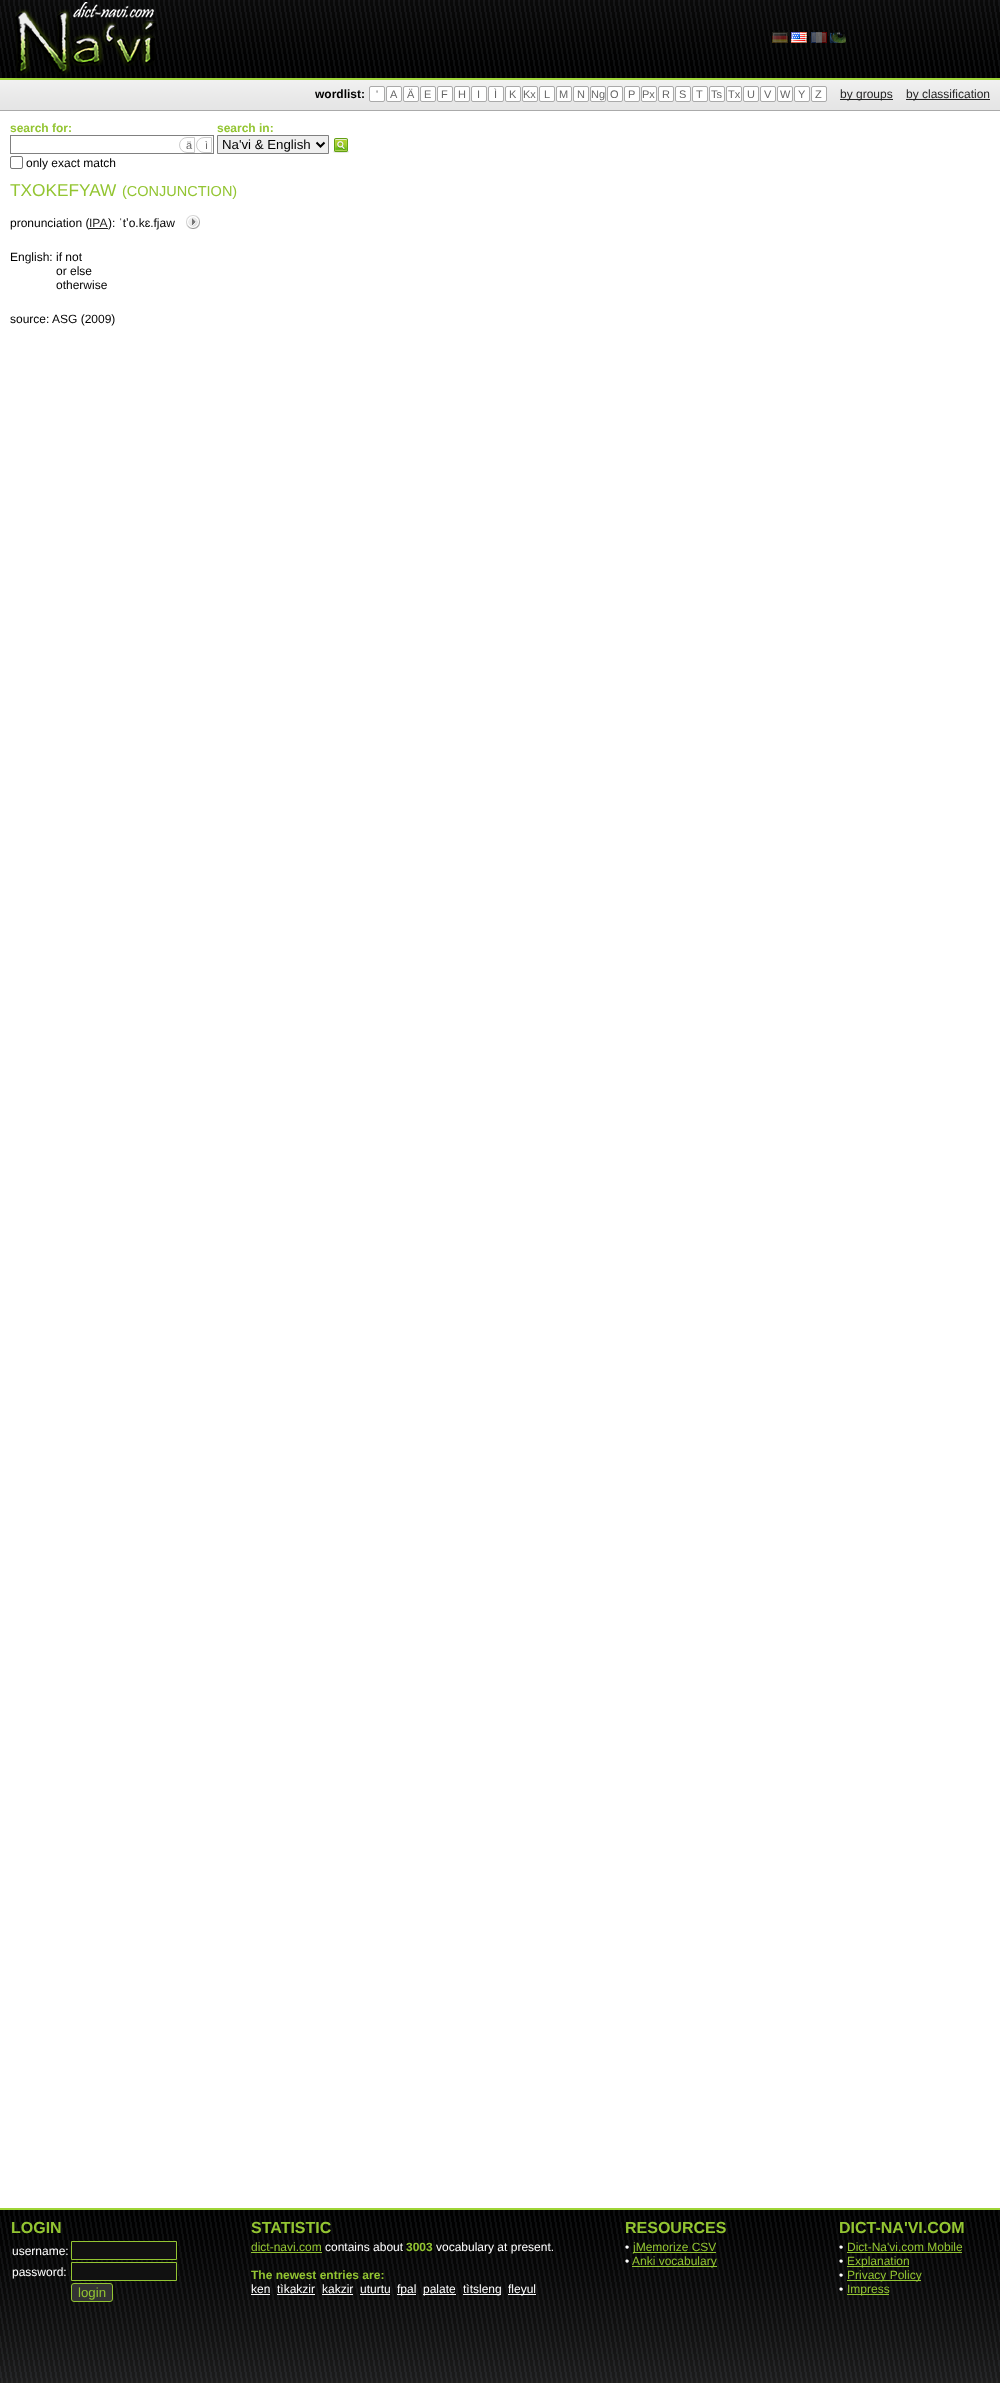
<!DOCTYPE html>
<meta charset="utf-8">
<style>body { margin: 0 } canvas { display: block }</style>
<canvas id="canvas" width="1000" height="2383"></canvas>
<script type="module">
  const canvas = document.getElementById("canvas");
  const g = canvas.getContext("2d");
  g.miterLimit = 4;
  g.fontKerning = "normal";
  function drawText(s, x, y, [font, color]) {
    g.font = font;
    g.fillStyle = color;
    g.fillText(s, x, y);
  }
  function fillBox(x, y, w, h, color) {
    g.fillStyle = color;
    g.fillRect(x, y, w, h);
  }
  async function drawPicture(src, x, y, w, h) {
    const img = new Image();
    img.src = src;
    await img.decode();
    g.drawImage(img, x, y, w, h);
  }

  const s1 = ["bold 12px Liberation Sans", "#000000"];
  const s2 = ["11px Liberation Sans", "#666666"];
  const s3 = ["12px Liberation Sans", "#242424"];
  const s4 = ["bold 12px Liberation Sans", "#93C532"];
  const s5 = ["12px Liberation Sans", "#000000"];
  const s6 = ["13.25px Liberation Sans", "#000000"];
  const s7 = ["17.25px Liberation Sans", "#93C532"];
  const s8 = ["14.5px Liberation Sans", "#93C532"];
  const s9 = ["bold 16px Liberation Sans", "#93C532"];
  const s10 = ["12px Liberation Sans", "#FFFFFF"];
  const s11 = ["13.25px Liberation Sans", "#93C532"];
  const s12 = ["12px Liberation Sans", "#93C532"];

  fillBox(0, 0, 1000, 2383, "#FFFFFF");
  await drawPicture("pic1.png", 0, 0, 1000, 80);
  await drawPicture("pic2.png", 15, 2, 142, 77);
  await drawPicture("pic3.png", 772, 32, 16, 11);
  await drawPicture("pic4.png", 791, 32, 16, 11);
  await drawPicture("pic5.png", 811, 32, 16, 11);
  await drawPicture("pic6.png", 830, 32, 16, 11);
  await drawPicture("pic7.png", 0, 80, 1000, 30);
  fillBox(0, 110, 1000, 1, "#AAAAAA");
  drawText("wordlist:", 315, 98, s1);
  g.fillStyle = "#FFFFFF";
  g.beginPath();
  g.roundRect(369.5, 86.5, 15, 15, 1.5);
  g.fill();
  g.strokeStyle = "#AAAAAA";
  g.stroke();
  drawText("'", 376, 98, s2);
  g.fillStyle = "#FFFFFF";
  g.beginPath();
  g.roundRect(386.5, 86.5, 15, 15, 1.5);
  g.fill();
  g.stroke();
  drawText("A", 390, 98, s2);
  g.fillStyle = "#FFFFFF";
  g.beginPath();
  g.roundRect(403.5, 86.5, 15, 15, 1.5);
  g.fill();
  g.stroke();
  drawText("Ä", 407, 98, s2);
  g.fillStyle = "#FFFFFF";
  g.beginPath();
  g.roundRect(420.5, 86.5, 15, 15, 1.5);
  g.fill();
  g.stroke();
  drawText("E", 424, 98, s2);
  g.fillStyle = "#FFFFFF";
  g.beginPath();
  g.roundRect(437.5, 86.5, 15, 15, 1.5);
  g.fill();
  g.stroke();
  drawText("F", 441, 98, s2);
  g.fillStyle = "#FFFFFF";
  g.beginPath();
  g.roundRect(454.5, 86.5, 15, 15, 1.5);
  g.fill();
  g.stroke();
  drawText("H", 458, 98, s2);
  g.fillStyle = "#FFFFFF";
  g.beginPath();
  g.roundRect(471.5, 86.5, 15, 15, 1.5);
  g.fill();
  g.stroke();
  drawText("I", 477, 98, s2);
  g.fillStyle = "#FFFFFF";
  g.beginPath();
  g.roundRect(488.5, 86.5, 15, 15, 1.5);
  g.fill();
  g.stroke();
  drawText("Ì", 494, 98, s2);
  g.fillStyle = "#FFFFFF";
  g.beginPath();
  g.roundRect(505.5, 86.5, 15, 15, 1.5);
  g.fill();
  g.stroke();
  drawText("K", 509, 98, s2);
  g.fillStyle = "#FFFFFF";
  g.beginPath();
  g.roundRect(522.5, 86.5, 15, 15, 1.5);
  g.fill();
  g.stroke();
  drawText("Kx", 523, 98, s2);
  g.fillStyle = "#FFFFFF";
  g.beginPath();
  g.roundRect(539.5, 86.5, 15, 15, 1.5);
  g.fill();
  g.stroke();
  drawText("L", 544, 98, s2);
  g.fillStyle = "#FFFFFF";
  g.beginPath();
  g.roundRect(556.5, 86.5, 15, 15, 1.5);
  g.fill();
  g.stroke();
  drawText("M", 559, 98, s2);
  g.fillStyle = "#FFFFFF";
  g.beginPath();
  g.roundRect(573.5, 86.5, 15, 15, 1.5);
  g.fill();
  g.stroke();
  drawText("N", 577, 98, s2);
  g.fillStyle = "#FFFFFF";
  g.beginPath();
  g.roundRect(590.5, 86.5, 15, 15, 1.5);
  g.fill();
  g.stroke();
  drawText("Ng", 591, 98, s2);
  g.fillStyle = "#FFFFFF";
  g.beginPath();
  g.roundRect(607.5, 86.5, 15, 15, 1.5);
  g.fill();
  g.stroke();
  drawText("O", 610, 98, s2);
  g.fillStyle = "#FFFFFF";
  g.beginPath();
  g.roundRect(624.5, 86.5, 15, 15, 1.5);
  g.fill();
  g.stroke();
  drawText("P", 628, 98, s2);
  g.fillStyle = "#FFFFFF";
  g.beginPath();
  g.roundRect(641.5, 86.5, 15, 15, 1.5);
  g.fill();
  g.stroke();
  drawText("Px", 642, 98, s2);
  g.fillStyle = "#FFFFFF";
  g.beginPath();
  g.roundRect(658.5, 86.5, 15, 15, 1.5);
  g.fill();
  g.stroke();
  drawText("R", 662, 98, s2);
  g.fillStyle = "#FFFFFF";
  g.beginPath();
  g.roundRect(675.5, 86.5, 15, 15, 1.5);
  g.fill();
  g.stroke();
  drawText("S", 679, 98, s2);
  g.fillStyle = "#FFFFFF";
  g.beginPath();
  g.roundRect(692.5, 86.5, 15, 15, 1.5);
  g.fill();
  g.stroke();
  drawText("T", 696, 98, s2);
  g.fillStyle = "#FFFFFF";
  g.beginPath();
  g.roundRect(709.5, 86.5, 15, 15, 1.5);
  g.fill();
  g.stroke();
  drawText("Ts", 711, 98, s2);
  g.fillStyle = "#FFFFFF";
  g.beginPath();
  g.roundRect(726.5, 86.5, 15, 15, 1.5);
  g.fill();
  g.stroke();
  drawText("Tx", 728, 98, s2);
  g.fillStyle = "#FFFFFF";
  g.beginPath();
  g.roundRect(743.5, 86.5, 15, 15, 1.5);
  g.fill();
  g.stroke();
  drawText("U", 747, 98, s2);
  g.fillStyle = "#FFFFFF";
  g.beginPath();
  g.roundRect(760.5, 86.5, 15, 15, 1.5);
  g.fill();
  g.stroke();
  drawText("V", 764, 98, s2);
  g.fillStyle = "#FFFFFF";
  g.beginPath();
  g.roundRect(777.5, 86.5, 15, 15, 1.5);
  g.fill();
  g.stroke();
  drawText("W", 780, 98, s2);
  g.fillStyle = "#FFFFFF";
  g.beginPath();
  g.roundRect(794.5, 86.5, 15, 15, 1.5);
  g.fill();
  g.stroke();
  drawText("Y", 798, 98, s2);
  g.fillStyle = "#FFFFFF";
  g.beginPath();
  g.roundRect(811.5, 86.5, 15, 15, 1.5);
  g.fill();
  g.stroke();
  drawText("Z", 815, 98, s2);
  fillBox(840, 99, 53, 1, "#242424");
  drawText("by groups", 840, 98, s3);
  fillBox(906, 99, 84, 1, "#242424");
  drawText("by classification", 906, 98, s3);
  drawText("search for:", 10, 132, s4);
  g.strokeStyle = "#808080";
  g.strokeRect(10.5, 135.5, 203, 18);
  g.beginPath();
  g.roundRect(179.5, 137.5, 15, 15, [7.5, 0, 0, 7.5]);
  g.strokeStyle = "#CCCCCC";
  g.stroke();
  drawText("ä", 186, 149, s2);
  g.beginPath();
  g.roundRect(196.5, 137.5, 15, 15, [7.5, 0, 0, 7.5]);
  g.stroke();
  drawText("ì", 205, 149, s2);
  g.beginPath();
  g.roundRect(10.5, 156.5, 12, 12, 1.5);
  g.strokeStyle = "#767676";
  g.stroke();
  drawText("only exact match", 26, 167, s5);
  drawText("search in:", 217, 132, s4);
  g.fillStyle = "#EFEFEF";
  g.beginPath();
  g.rect(217.5, 135.5, 111, 18);
  g.fill();
  g.strokeStyle = "#808080";
  g.stroke();
  g.beginPath();
  g.moveTo(316.5, 142.5);
  g.lineTo(320.5, 146.5);
  g.lineTo(324.5, 142.5);
  g.strokeStyle = "#000000";
  g.lineWidth = 2;
  g.stroke();
  drawText("Na'vi & English", 222, 149, s6);
  await drawPicture("pic8.png", 333, 138, 16, 15);
  drawText("TXOKEFYAW", 10, 196, s7);
  drawText("(CONJUNCTION)", 122, 196, s8);
  drawText("pronunciation (", 10, 227, s5);
  drawText("IPA", 89, 227, s3);
  fillBox(89, 228, 19, 1, "#242424");
  drawText("): ˈtʼo.kɛ.fjaw", 108, 227, s5);
  await drawPicture("pic9.png", 186, 215, 14, 14);
  drawText("English:", 10, 261, s5);
  drawText("if not", 56, 261, s5);
  drawText("or else", 56, 275, s5);
  drawText("otherwise", 56, 289, s5);
  drawText("source:", 10, 323, s5);
  drawText("ASG (2009)", 52, 323, s5);
  await drawPicture("pic10.png", 0, 2208, 1000, 175);
  drawText("LOGIN", 11, 2233, s9);
  drawText("username:", 12, 2255, s10);
  g.fillStyle = "#111111";
  g.beginPath();
  g.rect(71.5, 2241.5, 105, 18);
  g.fill();
  g.strokeStyle = "#93C532";
  g.lineWidth = 1;
  g.stroke();
  drawText("password:", 12, 2276, s10);
  g.fillStyle = "#111111";
  g.beginPath();
  g.rect(71.5, 2262.5, 105, 18);
  g.fill();
  g.stroke();
  g.fillStyle = "#333333";
  g.beginPath();
  g.roundRect(71.5, 2283.5, 41, 18, 2.5);
  g.fill();
  g.stroke();
  drawText("login", 78, 2297, s11);
  drawText("STATISTIC", 251, 2233, s9);
  drawText("dict-navi.com", 251, 2251, s12);
  fillBox(251, 2252, 71, 1, "#93C532");
  drawText("contains about", 325, 2251, s10);
  drawText("3003", 406, 2251, s4);
  drawText("vocabulary at present.", 436, 2251, s10);
  drawText("The newest entries are:", 251, 2279, s4);
  drawText("ken", 251, 2293, s10);
  fillBox(251, 2294, 19, 1, "#FFFFFF");
  drawText("tìkakzir", 277, 2293, s10);
  fillBox(277, 2294, 38, 1, "#FFFFFF");
  drawText("kakzir", 322, 2293, s10);
  fillBox(322, 2294, 31, 1, "#FFFFFF");
  drawText("uturtu", 360, 2293, s10);
  fillBox(360, 2294, 30, 1, "#FFFFFF");
  fillBox(397, 2294, 19, 1, "#FFFFFF");
  drawText("fpal", 397, 2293, s10);
  fillBox(423, 2294, 33, 1, "#FFFFFF");
  drawText("palate", 423, 2293, s10);
  fillBox(463, 2294, 38, 1, "#FFFFFF");
  drawText("tìtsleng", 463, 2293, s10);
  fillBox(508, 2294, 28, 1, "#FFFFFF");
  drawText("fleyul", 508, 2293, s10);
  drawText("RESOURCES", 625, 2233, s9);
  drawText("•", 625, 2251, s10);
  fillBox(633, 2252, 83, 1, "#93C532");
  drawText("jMemorize CSV", 633, 2251, s12);
  drawText("•", 625, 2265, s10);
  fillBox(632, 2266, 85, 1, "#93C532");
  drawText("Anki vocabulary", 632, 2265, s12);
  drawText("DICT-NA'VI.COM", 839, 2233, s9);
  drawText("•", 839, 2251, s10);
  drawText("Dict-Na'vi.com Mobile", 847, 2251, s12);
  fillBox(847, 2252, 115, 1, "#93C532");
  drawText("•", 839, 2265, s10);
  fillBox(847, 2266, 62, 1, "#93C532");
  drawText("Explanation", 847, 2265, s12);
  drawText("•", 839, 2279, s10);
  fillBox(847, 2280, 74, 1, "#93C532");
  drawText("Privacy Policy", 847, 2279, s12);
  drawText("•", 839, 2293, s10);
  fillBox(847, 2294, 42, 1, "#93C532");
  drawText("Impress", 847, 2293, s12);
</script>
